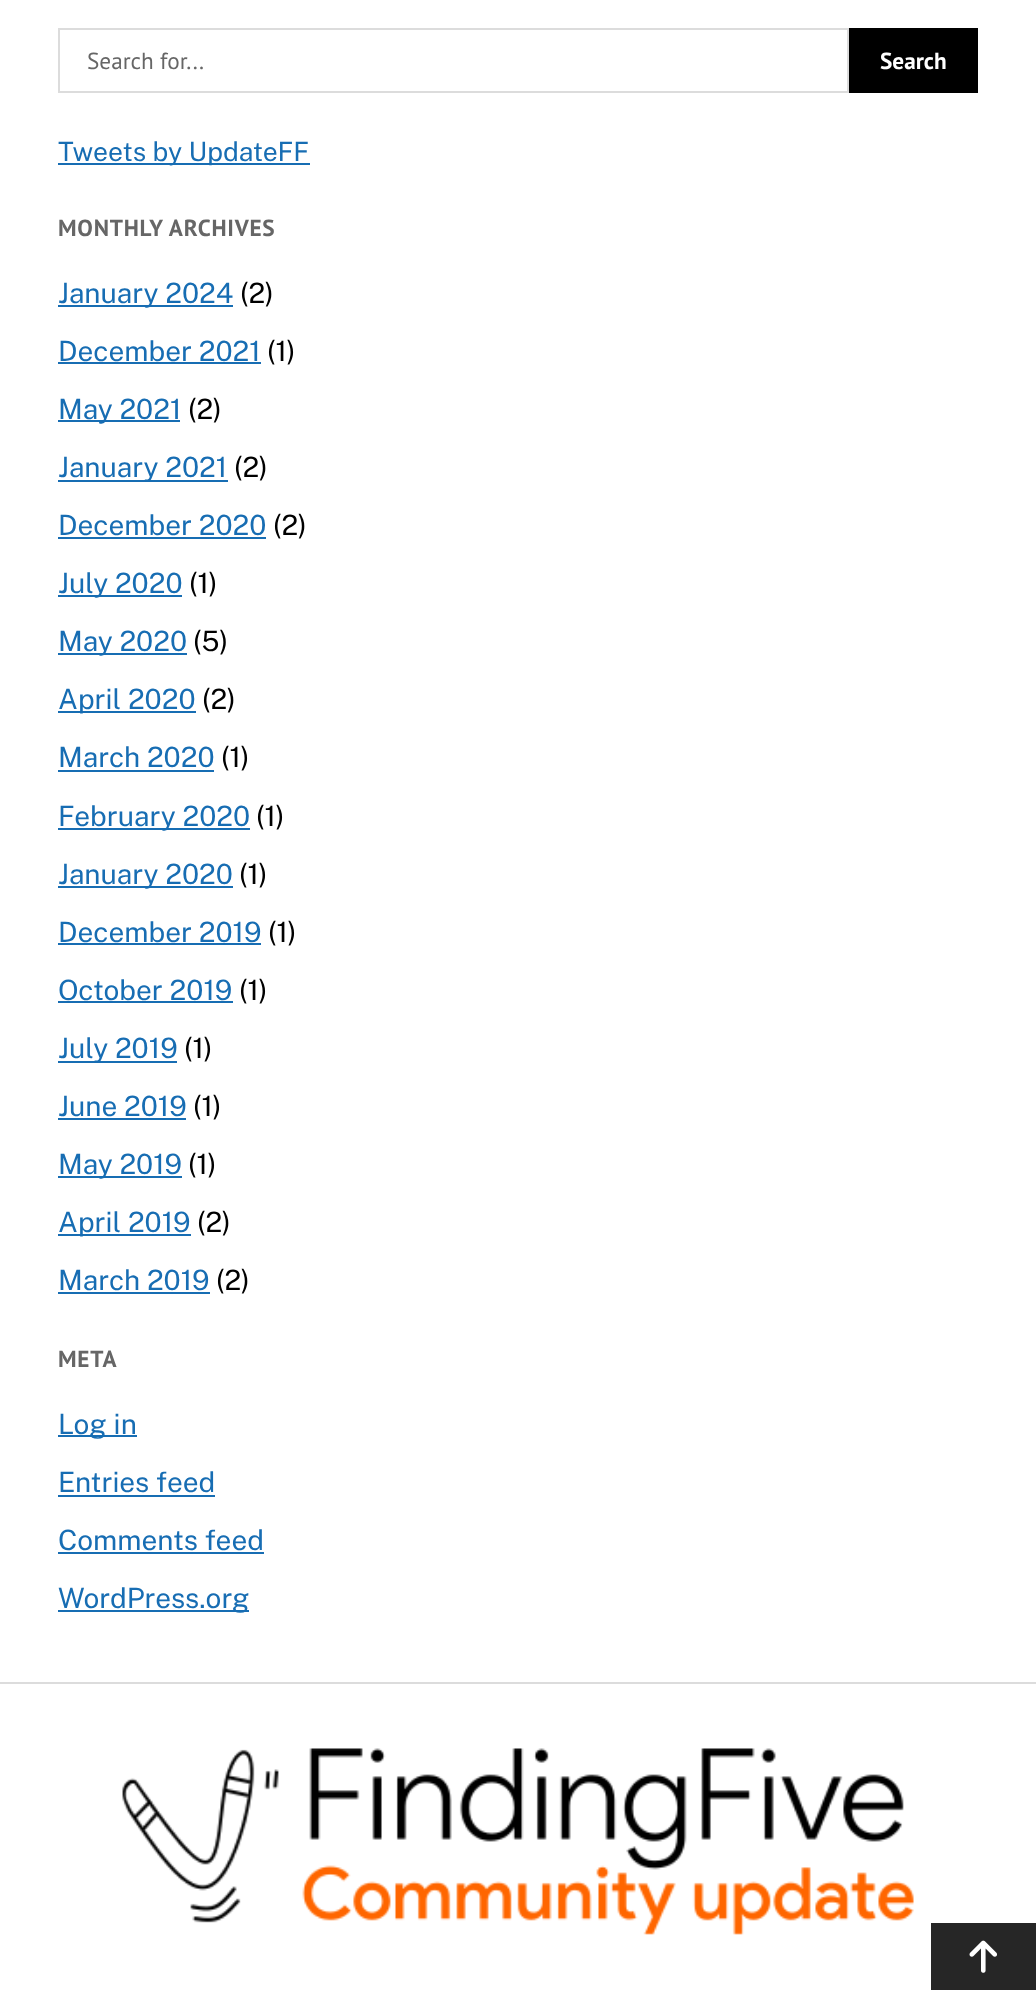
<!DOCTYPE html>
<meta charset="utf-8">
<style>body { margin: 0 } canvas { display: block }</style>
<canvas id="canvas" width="1036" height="1990"></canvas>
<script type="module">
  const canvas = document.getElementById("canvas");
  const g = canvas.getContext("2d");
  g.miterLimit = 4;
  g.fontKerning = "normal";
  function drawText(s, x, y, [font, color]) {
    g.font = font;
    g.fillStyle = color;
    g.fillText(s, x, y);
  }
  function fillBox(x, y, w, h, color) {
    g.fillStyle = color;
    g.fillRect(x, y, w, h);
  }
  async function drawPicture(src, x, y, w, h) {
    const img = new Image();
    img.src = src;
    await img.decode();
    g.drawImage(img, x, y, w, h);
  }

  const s1 = ["23.25px PT Sans", "#666666"];
  const s2 = ["bold 23.25px PT Sans", "#FFFFFF"];
  const s3 = ["26.5px Public Sans", "#176DB3"];
  const s4 = ["bold 23.25px PT Sans", "#666666"];
  const s5 = ["28px Public Sans", "#176DB3"];
  const s6 = ["28px Public Sans", "#000000"];

  fillBox(0, 0, 1036, 1990, "#FFFFFF");
  g.strokeStyle = "#DCDCDC";
  g.lineWidth = 2;
  g.strokeRect(59, 29, 789, 63);
  drawText("Search for...", 87, 69, s1);
  fillBox(849, 28, 129, 65, "#000000");
  drawText("Search", 880, 69, s2);
  fillBox(58, 163, 252, 2, "#176DB3");
  drawText("Tweets by UpdateFF", 58, 161, s3);
  g.letterSpacing = "0.75px";
  drawText("MONTHLY ARCHIVES", 58, 236, s4);
  fillBox(58, 305, 175, 2, "#176DB3");
  g.letterSpacing = "0px";
  drawText("January 2024", 58, 303, s5);
  drawText("(2)", 240, 303, s6);
  drawText("December 2021", 58, 361, s5);
  fillBox(58, 362, 203, 2, "#176DB3");
  drawText("(1)", 267, 361, s6);
  fillBox(58, 420, 122, 2, "#176DB3");
  drawText("May 2021", 58, 419, s5);
  drawText("(2)", 188, 419, s6);
  fillBox(58, 480, 170, 2, "#176DB3");
  drawText("January 2021", 58, 477, s5);
  drawText("(2)", 234, 477, s6);
  drawText("December 2020", 58, 535, s5);
  fillBox(58, 537, 208, 2, "#176DB3");
  drawText("(2)", 273, 535, s6);
  fillBox(58, 595, 124, 2, "#176DB3");
  drawText("July 2020", 58, 593, s5);
  drawText("(1)", 189, 593, s6);
  fillBox(58, 653, 129, 2, "#176DB3");
  drawText("May 2020", 58, 651, s5);
  drawText("(5)", 193, 651, s6);
  fillBox(58, 711, 138, 2, "#176DB3");
  drawText("April 2020", 58, 709, s5);
  drawText("(2)", 202, 709, s6);
  drawText("March 2020", 58, 767, s5);
  fillBox(58, 770, 156, 2, "#176DB3");
  drawText("(1)", 221, 767, s6);
  fillBox(58, 828, 192, 2, "#176DB3");
  drawText("February 2020", 58, 826, s5);
  drawText("(1)", 256, 826, s6);
  fillBox(58, 886, 175, 2, "#176DB3");
  drawText("January 2020", 58, 884, s5);
  drawText("(1)", 239, 884, s6);
  drawText("December 2019", 58, 942, s5);
  fillBox(58, 943, 203, 2, "#176DB3");
  drawText("(1)", 268, 942, s6);
  drawText("October 2019", 58, 1000, s5);
  fillBox(58, 1001, 175, 2, "#176DB3");
  drawText("(1)", 239, 1000, s6);
  fillBox(58, 1061, 119, 2, "#176DB3");
  drawText("July 2019", 58, 1058, s5);
  drawText("(1)", 184, 1058, s6);
  drawText("June 2019", 58, 1116, s5);
  fillBox(58, 1118, 128, 2, "#176DB3");
  drawText("(1)", 193, 1116, s6);
  fillBox(58, 1176, 124, 2, "#176DB3");
  drawText("May 2019", 58, 1174, s5);
  drawText("(1)", 188, 1174, s6);
  fillBox(58, 1234, 133, 2, "#176DB3");
  drawText("April 2019", 58, 1232, s5);
  drawText("(2)", 197, 1232, s6);
  drawText("March 2019", 58, 1290, s5);
  fillBox(58, 1292, 152, 2, "#176DB3");
  drawText("(2)", 216, 1290, s6);
  g.letterSpacing = "0.75px";
  drawText("META", 58, 1367, s4);
  fillBox(58, 1435, 79, 2, "#176DB3");
  g.letterSpacing = "0px";
  drawText("Log in", 58, 1434, s5);
  drawText("Entries feed", 58, 1492, s5);
  fillBox(58, 1495, 157, 2, "#176DB3");
  drawText("Comments feed", 58, 1550, s5);
  fillBox(58, 1552, 206, 2, "#176DB3");
  fillBox(58, 1610, 191, 2, "#176DB3");
  drawText("WordPress.org", 58, 1608, s5);
  fillBox(0, 1682, 1036, 2, "#DCDCDC");
  await drawPicture("pic1.png", 122, 1748, 792, 187);
  fillBox(931, 1923, 105, 67, "#262626");
  await drawPicture("pic2.png", 969, 1940, 28, 33);
</script>
